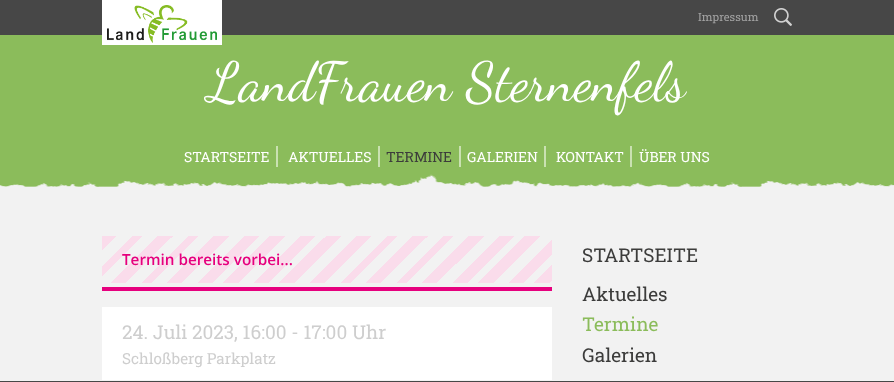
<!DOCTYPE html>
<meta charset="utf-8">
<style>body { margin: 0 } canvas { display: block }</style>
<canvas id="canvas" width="894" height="382"></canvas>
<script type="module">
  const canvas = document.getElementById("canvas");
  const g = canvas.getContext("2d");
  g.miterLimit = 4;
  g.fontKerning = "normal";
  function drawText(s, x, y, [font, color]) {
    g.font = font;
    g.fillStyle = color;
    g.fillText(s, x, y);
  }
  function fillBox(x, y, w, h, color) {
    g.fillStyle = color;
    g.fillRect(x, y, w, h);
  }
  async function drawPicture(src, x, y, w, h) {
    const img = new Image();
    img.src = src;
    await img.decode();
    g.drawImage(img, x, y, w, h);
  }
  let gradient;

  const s1 = ["11.25px Roboto Slab", "#A3A3A3"];
  const s2 = ["55px Dancing Script", "#FFFFFF"];
  const s3 = ["14px Roboto Slab", "#FFFFFF"];
  const s4 = ["14px Roboto Slab", "#3C3C3B"];
  const s5 = ["600 15.25px Open Sans", "#E6007E"];
  const s6 = ["19px Roboto Slab", "#CECECE"];
  const s7 = ["15.25px Roboto Slab", "#CECECE"];
  const s8 = ["19px Roboto Slab", "#3C3C3B"];
  const s9 = ["19px Roboto Slab", "#8BBC5B"];

  fillBox(0, 0, 894, 382, "#F2F2F2");
  fillBox(0, 0, 894, 35, "#474747");
  fillBox(0, 35, 894, 152, "#8BBC5B");
  fillBox(102, 0, 120, 45, "#FFFFFF");
  await drawPicture("pic1.png", 107, 5, 110, 38);
  drawText("Impressum", 698, 21, s1);
  await drawPicture("pic2.png", 774, 8, 18, 18);
  drawText("LandFrauen Sternenfels", 208, 100, s2);
  await drawPicture("pic3.png", 0, 174, 894, 14);
  fillBox(276, 146, 2, 21, "#CAE1B2");
  drawText("STARTSEITE", 184, 162, s3);
  fillBox(378, 146, 2, 21, "#CAE1B2");
  drawText("AKTUELLES", 288, 162, s3);
  fillBox(459, 146, 2, 21, "#CAE1B2");
  drawText("TERMINE", 386, 162, s4);
  fillBox(544, 146, 2, 21, "#CAE1B2");
  drawText("GALERIEN", 467, 162, s3);
  fillBox(630, 146, 2, 21, "#CAE1B2");
  drawText("KONTAKT", 556, 162, s3);
  drawText("ÜBER UNS", 639, 162, s3);
  gradient = g.createLinearGradient(202, 136, 456, 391);
  gradient.addColorStop(0, "#FADCEB");
  gradient.addColorStop(0.03, "#FADCEB");
  gradient.addColorStop(0.03, "#F2F2F2");
  gradient.addColorStop(0.06, "#F2F2F2");
  gradient.addColorStop(0.06, "#FADCEB");
  gradient.addColorStop(0.08, "#FADCEB");
  gradient.addColorStop(0.08, "#F2F2F2");
  gradient.addColorStop(0.11, "#F2F2F2");
  gradient.addColorStop(0.11, "#FADCEB");
  gradient.addColorStop(0.14, "#FADCEB");
  gradient.addColorStop(0.14, "#F2F2F2");
  gradient.addColorStop(0.17, "#F2F2F2");
  gradient.addColorStop(0.17, "#FADCEB");
  gradient.addColorStop(0.19, "#FADCEB");
  gradient.addColorStop(0.19, "#F2F2F2");
  gradient.addColorStop(0.22, "#F2F2F2");
  gradient.addColorStop(0.22, "#FADCEB");
  gradient.addColorStop(0.25, "#FADCEB");
  gradient.addColorStop(0.25, "#F2F2F2");
  gradient.addColorStop(0.28, "#F2F2F2");
  gradient.addColorStop(0.28, "#FADCEB");
  gradient.addColorStop(0.31, "#FADCEB");
  gradient.addColorStop(0.31, "#F2F2F2");
  gradient.addColorStop(0.33, "#F2F2F2");
  gradient.addColorStop(0.33, "#FADCEB");
  gradient.addColorStop(0.36, "#FADCEB");
  gradient.addColorStop(0.36, "#F2F2F2");
  gradient.addColorStop(0.39, "#F2F2F2");
  gradient.addColorStop(0.39, "#FADCEB");
  gradient.addColorStop(0.42, "#FADCEB");
  gradient.addColorStop(0.42, "#F2F2F2");
  gradient.addColorStop(0.44, "#F2F2F2");
  gradient.addColorStop(0.44, "#FADCEB");
  gradient.addColorStop(0.47, "#FADCEB");
  gradient.addColorStop(0.47, "#F2F2F2");
  gradient.addColorStop(0.5, "#F2F2F2");
  gradient.addColorStop(0.5, "#FADCEB");
  gradient.addColorStop(0.53, "#FADCEB");
  gradient.addColorStop(0.53, "#F2F2F2");
  gradient.addColorStop(0.56, "#F2F2F2");
  gradient.addColorStop(0.56, "#FADCEB");
  gradient.addColorStop(0.58, "#FADCEB");
  gradient.addColorStop(0.58, "#F2F2F2");
  gradient.addColorStop(0.61, "#F2F2F2");
  gradient.addColorStop(0.61, "#FADCEB");
  gradient.addColorStop(0.64, "#FADCEB");
  gradient.addColorStop(0.64, "#F2F2F2");
  gradient.addColorStop(0.67, "#F2F2F2");
  gradient.addColorStop(0.67, "#FADCEB");
  gradient.addColorStop(0.69, "#FADCEB");
  gradient.addColorStop(0.69, "#F2F2F2");
  gradient.addColorStop(0.72, "#F2F2F2");
  gradient.addColorStop(0.72, "#FADCEB");
  gradient.addColorStop(0.75, "#FADCEB");
  gradient.addColorStop(0.75, "#F2F2F2");
  gradient.addColorStop(0.78, "#F2F2F2");
  gradient.addColorStop(0.78, "#FADCEB");
  gradient.addColorStop(0.81, "#FADCEB");
  gradient.addColorStop(0.81, "#F2F2F2");
  gradient.addColorStop(0.83, "#F2F2F2");
  gradient.addColorStop(0.83, "#FADCEB");
  gradient.addColorStop(0.86, "#FADCEB");
  gradient.addColorStop(0.86, "#F2F2F2");
  gradient.addColorStop(0.89, "#F2F2F2");
  gradient.addColorStop(0.89, "#FADCEB");
  gradient.addColorStop(0.92, "#FADCEB");
  gradient.addColorStop(0.92, "#F2F2F2");
  gradient.addColorStop(0.94, "#F2F2F2");
  gradient.addColorStop(0.94, "#FADCEB");
  gradient.addColorStop(0.97, "#FADCEB");
  gradient.addColorStop(0.97, "#F2F2F2");
  gradient.addColorStop(1, "#F2F2F2");
  g.fillStyle = gradient;
  g.fillRect(102, 236, 450, 47);
  fillBox(102, 287, 450, 4, "#E6007E");
  drawText("Termin bereits vorbei...", 122, 265, s5);
  fillBox(102, 307, 450, 73, "#FFFFFF");
  drawText("24. Juli 2023, 16:00 - 17:00 Uhr", 122, 339, s6);
  drawText("Schloßberg Parkplatz", 122, 364, s7);
  drawText("STARTSEITE", 582, 262, s8);
  drawText("Aktuelles", 582, 301, s8);
  drawText("Termine", 582, 331, s9);
  drawText("Galerien", 582, 362, s8);
  fillBox(0, 381, 894, 1, "#474747");
</script>
